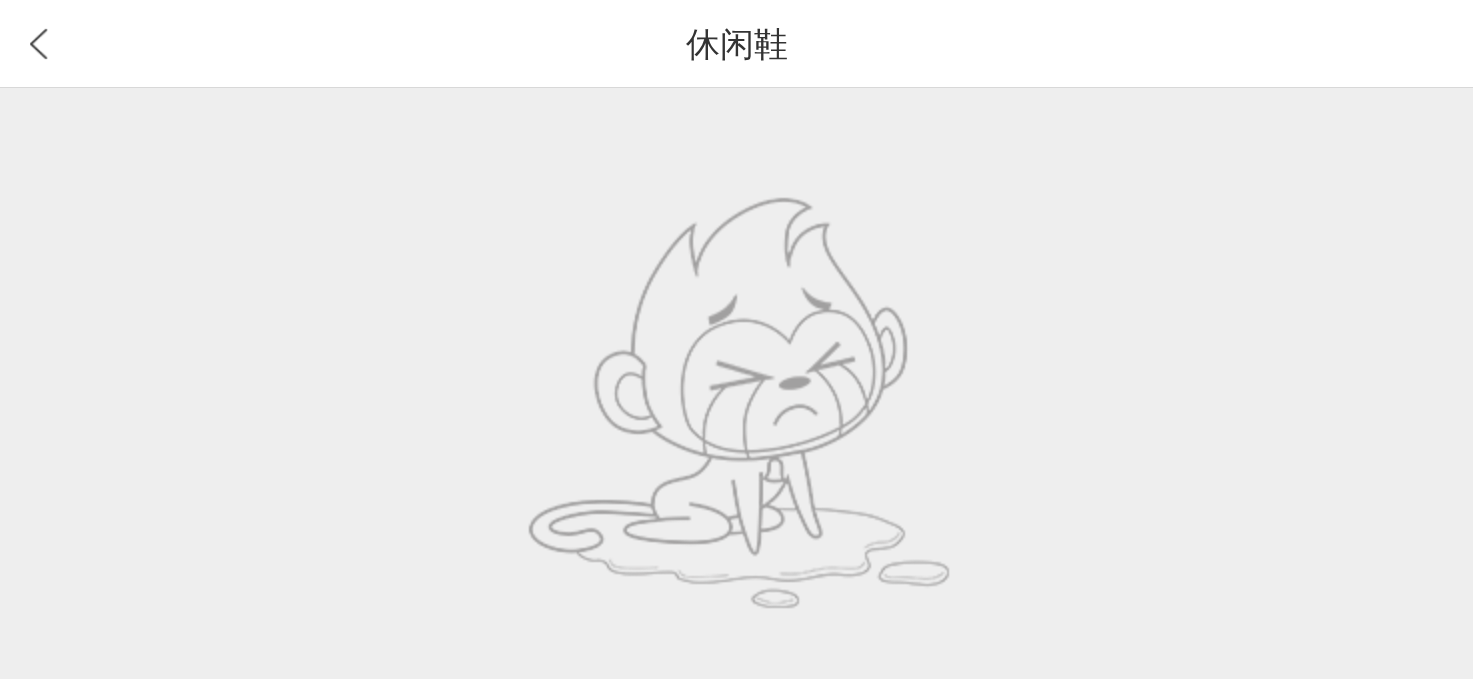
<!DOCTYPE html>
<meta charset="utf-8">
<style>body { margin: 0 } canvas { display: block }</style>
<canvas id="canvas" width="1473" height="679"></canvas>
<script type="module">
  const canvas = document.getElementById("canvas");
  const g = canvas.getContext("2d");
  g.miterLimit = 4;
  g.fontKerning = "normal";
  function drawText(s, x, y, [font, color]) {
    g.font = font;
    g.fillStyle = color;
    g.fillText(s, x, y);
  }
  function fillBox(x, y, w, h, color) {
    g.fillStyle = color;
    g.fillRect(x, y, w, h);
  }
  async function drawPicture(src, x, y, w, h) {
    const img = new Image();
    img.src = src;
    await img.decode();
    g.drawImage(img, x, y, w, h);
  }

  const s1 = ["500 34px WenQuanYi Zen Hei", "#333333"];

  fillBox(0, 0, 1473, 679, "#EEEEEE");
  fillBox(0, 0, 1473, 87, "#FFFFFF");
  await drawPicture("pic1.png", 30, 28, 18, 32);
  fillBox(0, 87, 1473, 1, "#D8D8D8");
  drawText("休闲鞋", 686, 56, s1);
  await drawPicture("pic2.png", 528, 197, 422, 412);
</script>
